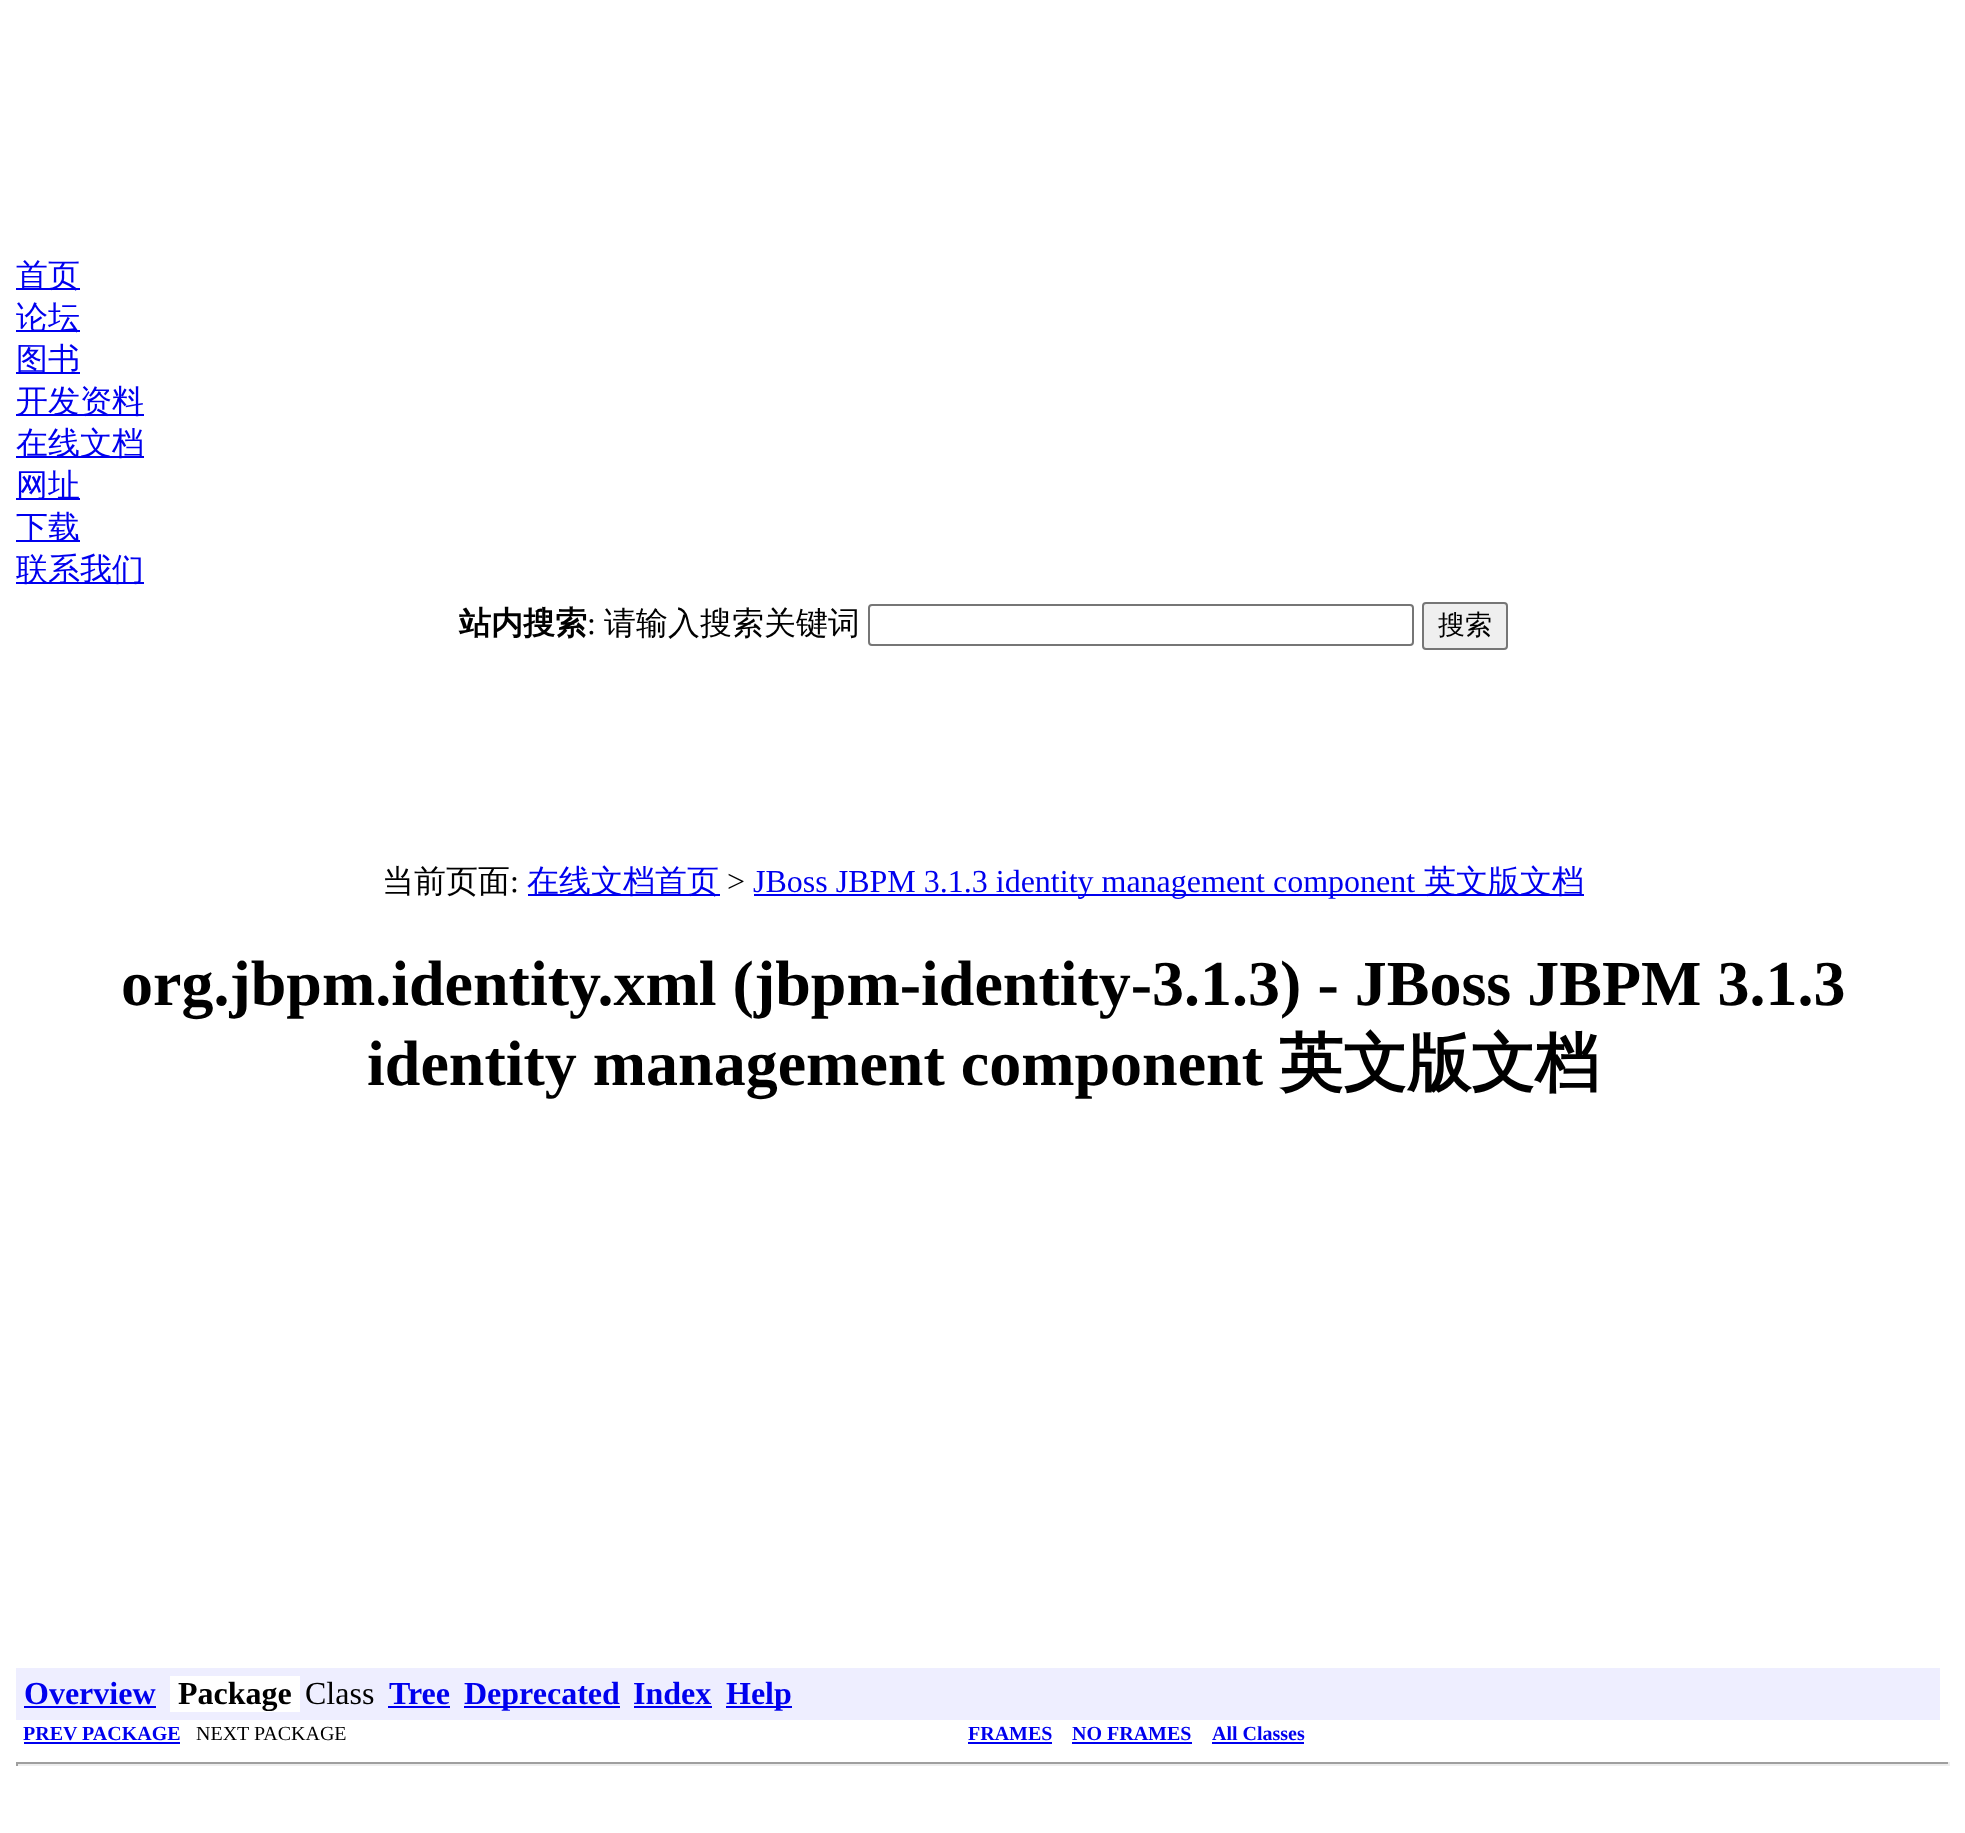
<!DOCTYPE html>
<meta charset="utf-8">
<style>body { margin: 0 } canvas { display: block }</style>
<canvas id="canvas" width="1965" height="1833"></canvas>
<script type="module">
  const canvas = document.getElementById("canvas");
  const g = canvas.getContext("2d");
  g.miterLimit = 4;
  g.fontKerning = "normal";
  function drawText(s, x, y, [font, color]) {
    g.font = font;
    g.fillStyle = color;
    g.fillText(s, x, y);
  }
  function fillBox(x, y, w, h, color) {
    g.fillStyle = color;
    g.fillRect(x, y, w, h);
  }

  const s1 = ["500 32px WenQuanYi Zen Hei", "#0000EE"];
  const s2 = ["bold 32px WenQuanYi Zen Hei", "#000000"];
  const s3 = ["32px Liberation Serif", "#000000"];
  const s4 = ["500 32px WenQuanYi Zen Hei", "#000000"];
  const s5 = ["500 27px WenQuanYi Zen Hei", "#000000"];
  const s6 = ["32px Liberation Serif", "#0000EE"];
  const s7 = ["bold 64px Liberation Serif", "#000000"];
  const s8 = ["bold 64px WenQuanYi Zen Hei", "#000000"];
  const s9 = ["bold 32px Liberation Serif", "#0000EE"];
  const s10 = ["bold 32px Liberation Serif", "#000000"];
  const s11 = ["bold 20px Liberation Serif", "#0000EE"];
  const s12 = ["20px Liberation Serif", "#000000"];

  fillBox(0, 0, 1965, 1833, "#FFFFFF");
  fillBox(16, 288, 64, 2, "#0000EE");
  drawText("首页", 16, 286, s1);
  fillBox(16, 330, 64, 2, "#0000EE");
  drawText("论坛", 16, 328, s1);
  fillBox(16, 372, 64, 2, "#0000EE");
  drawText("图书", 16, 370, s1);
  fillBox(16, 414, 128, 2, "#0000EE");
  drawText("开发资料", 16, 412, s1);
  fillBox(16, 456, 128, 2, "#0000EE");
  drawText("在线文档", 16, 454, s1);
  fillBox(16, 498, 64, 2, "#0000EE");
  drawText("网址", 16, 496, s1);
  fillBox(16, 540, 64, 2, "#0000EE");
  drawText("下载", 16, 538, s1);
  fillBox(16, 582, 128, 2, "#0000EE");
  drawText("联系我们", 16, 580, s1);
  drawText("站内搜索", 459, 634, s2);
  drawText(":", 587, 634, s3);
  drawText("请输入搜索关键词", 604, 634, s4);
  g.beginPath();
  g.roundRect(869, 605, 544, 40, 3);
  g.strokeStyle = "#767676";
  g.lineWidth = 2;
  g.stroke();
  g.fillStyle = "#EFEFEF";
  g.beginPath();
  g.roundRect(1423, 603, 84, 46, 3);
  g.fill();
  g.stroke();
  drawText("搜索", 1438, 634, s5);
  drawText("当前页面", 382, 892, s4);
  drawText(":", 510, 892, s3);
  fillBox(528, 894, 192, 2, "#0000EE");
  drawText("在线文档首页", 527, 892, s1);
  drawText(">", 727, 892, s3);
  fillBox(754, 894, 830, 2, "#0000EE");
  drawText("JBoss JBPM 3.1.3 identity management component", 753, 892, s6);
  drawText("英文版文档", 1424, 892, s1);
  drawText("org.jbpm.identity.xml (jbpm-identity-3.1.3) - JBoss JBPM 3.1.3", 121, 1005, s7);
  drawText("identity management component", 367, 1085, s7);
  drawText("英文版文档", 1279, 1085, s8);
  fillBox(16, 1668, 1924, 52, "#EEEEFF");
  drawText("Overview", 24, 1704, s9);
  fillBox(24, 1706, 132, 2, "#0000EE");
  fillBox(170, 1676, 130, 36, "#FFFFFF");
  drawText("Package", 178, 1704, s10);
  drawText("Class", 305, 1704, s3);
  drawText("Tree", 389, 1704, s9);
  fillBox(388, 1706, 62, 2, "#0000EE");
  fillBox(464, 1706, 156, 2, "#0000EE");
  drawText("Deprecated", 464, 1704, s9);
  drawText("Index", 633, 1704, s9);
  fillBox(634, 1706, 78, 2, "#0000EE");
  fillBox(726, 1706, 66, 2, "#0000EE");
  drawText("Help", 726, 1704, s9);
  drawText("PREV PACKAGE", 23, 1740, s11);
  fillBox(24, 1742, 156, 2, "#0000EE");
  drawText("NEXT PACKAGE", 196, 1740, s12);
  drawText("FRAMES", 968, 1740, s11);
  fillBox(968, 1742, 84, 2, "#0000EE");
  drawText("NO FRAMES", 1072, 1740, s11);
  fillBox(1072, 1742, 120, 2, "#0000EE");
  drawText("All Classes", 1212, 1740, s11);
  fillBox(1212, 1742, 92, 2, "#0000EE");
  fillBox(16, 1762, 1934, 2, "#9F9F9F");
  fillBox(1948, 1762, 2, 4, "#EEEEEE");
  fillBox(16, 1764, 1934, 2, "#EEEEEE");
  fillBox(16, 1762, 2, 4, "#9F9F9F");
</script>
